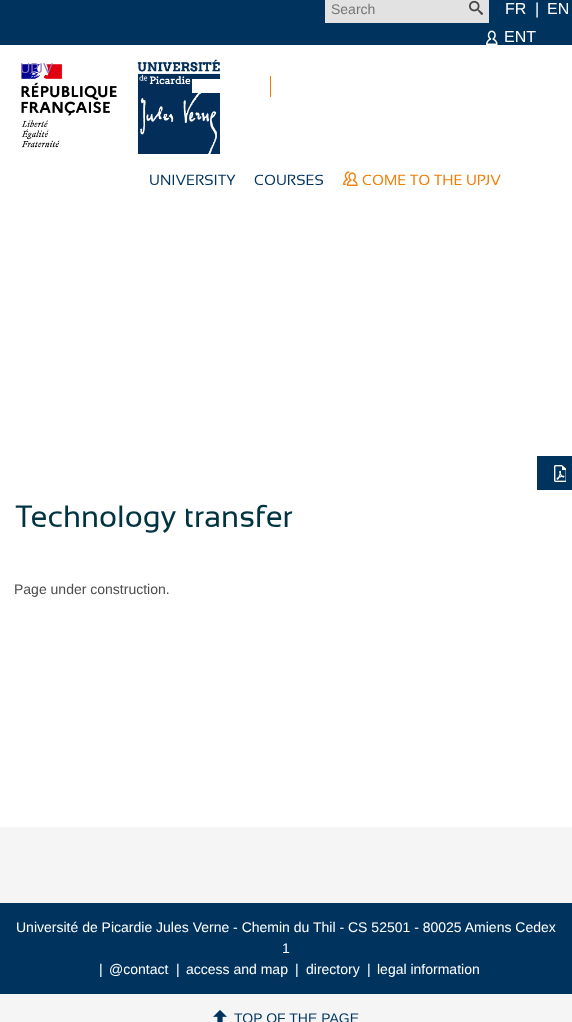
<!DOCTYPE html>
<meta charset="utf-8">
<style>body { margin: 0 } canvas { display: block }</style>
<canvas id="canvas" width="572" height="1022"></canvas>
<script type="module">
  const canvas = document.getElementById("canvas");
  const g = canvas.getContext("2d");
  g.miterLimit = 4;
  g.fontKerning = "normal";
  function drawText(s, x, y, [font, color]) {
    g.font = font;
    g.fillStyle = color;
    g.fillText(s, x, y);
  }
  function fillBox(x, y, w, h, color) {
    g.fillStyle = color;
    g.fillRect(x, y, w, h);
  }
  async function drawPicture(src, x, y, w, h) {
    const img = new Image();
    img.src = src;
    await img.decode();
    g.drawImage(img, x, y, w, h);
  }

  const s1 = ["14px Liberation Sans", "#757575"];
  const s2 = ["16px Liberation Sans", "#FFFFFF"];
  const s3 = ["14px Sansation", "#8F77B6"];
  const s4 = ["14.75px Sansation", "#00345F"];
  const s5 = ["14.75px Sansation", "#EF7D08"];
  const s6 = ["30.75px Sansation", "#003441"];
  const s7 = ["14px Liberation Sans", "#4C4C4C"];
  const s8 = ["14px Liberation Sans", "#FFFFFF"];
  const s9 = ["14px Liberation Sans", "#00345F"];

  fillBox(0, 0, 572, 1022, "#FFFFFF");
  fillBox(0, 0, 572, 45, "#00345F");
  fillBox(325, 0, 164, 23, "#E2E2E2");
  drawText("Search", 331, 14, s1);
  await drawPicture("pic1.png", 469, 0, 14, 15);
  drawText("FR", 505, 14, s2);
  drawText("|", 535, 14, s2);
  drawText("EN", 547, 14, s2);
  await drawPicture("pic2.png", 486, 30, 12, 15);
  drawText("ENT", 504, 42, s2);
  await drawPicture("pic3.png", 21, 59, 199, 95);
  drawText("UPJV", 20, 73, s3);
  fillBox(270, 76, 1, 21, "#EF7D08");
  fillBox(192, 79, 28, 14, "#FFFFFF");
  drawText("UNIVERSITY", 149, 185, s4);
  drawText("COURSES", 254, 185, s4);
  await drawPicture("pic4.png", 343, 171, 15, 15);
  drawText("COME TO THE UPJV", 362, 185, s5);
  fillBox(537, 456, 35, 34, "#00345F");
  await drawPicture("pic5.png", 554, 465, 12, 17);
  drawText("Technology transfer", 15, 527, s6);
  drawText("Page under construction.", 14, 594, s7);
  fillBox(0, 827, 572, 195, "#F5F5F5");
  fillBox(0, 903, 572, 91, "#00345F");
  drawText("Université de Picardie Jules Verne - Chemin du Thil - CS 52501 - 80025 Amiens Cedex", 16, 932, s8);
  drawText("1", 282, 953, s8);
  drawText("|", 99, 974, s8);
  drawText("@contact", 109, 974, s8);
  drawText("|", 176, 974, s8);
  drawText("access and map", 186, 974, s8);
  drawText("|", 295, 974, s8);
  drawText("directory", 306, 974, s8);
  drawText("|", 367, 974, s8);
  drawText("legal information", 377, 974, s8);
  await drawPicture("pic6.png", 213, 1010, 14, 12);
  drawText("TOP OF THE PAGE", 234, 1023, s9);
</script>
